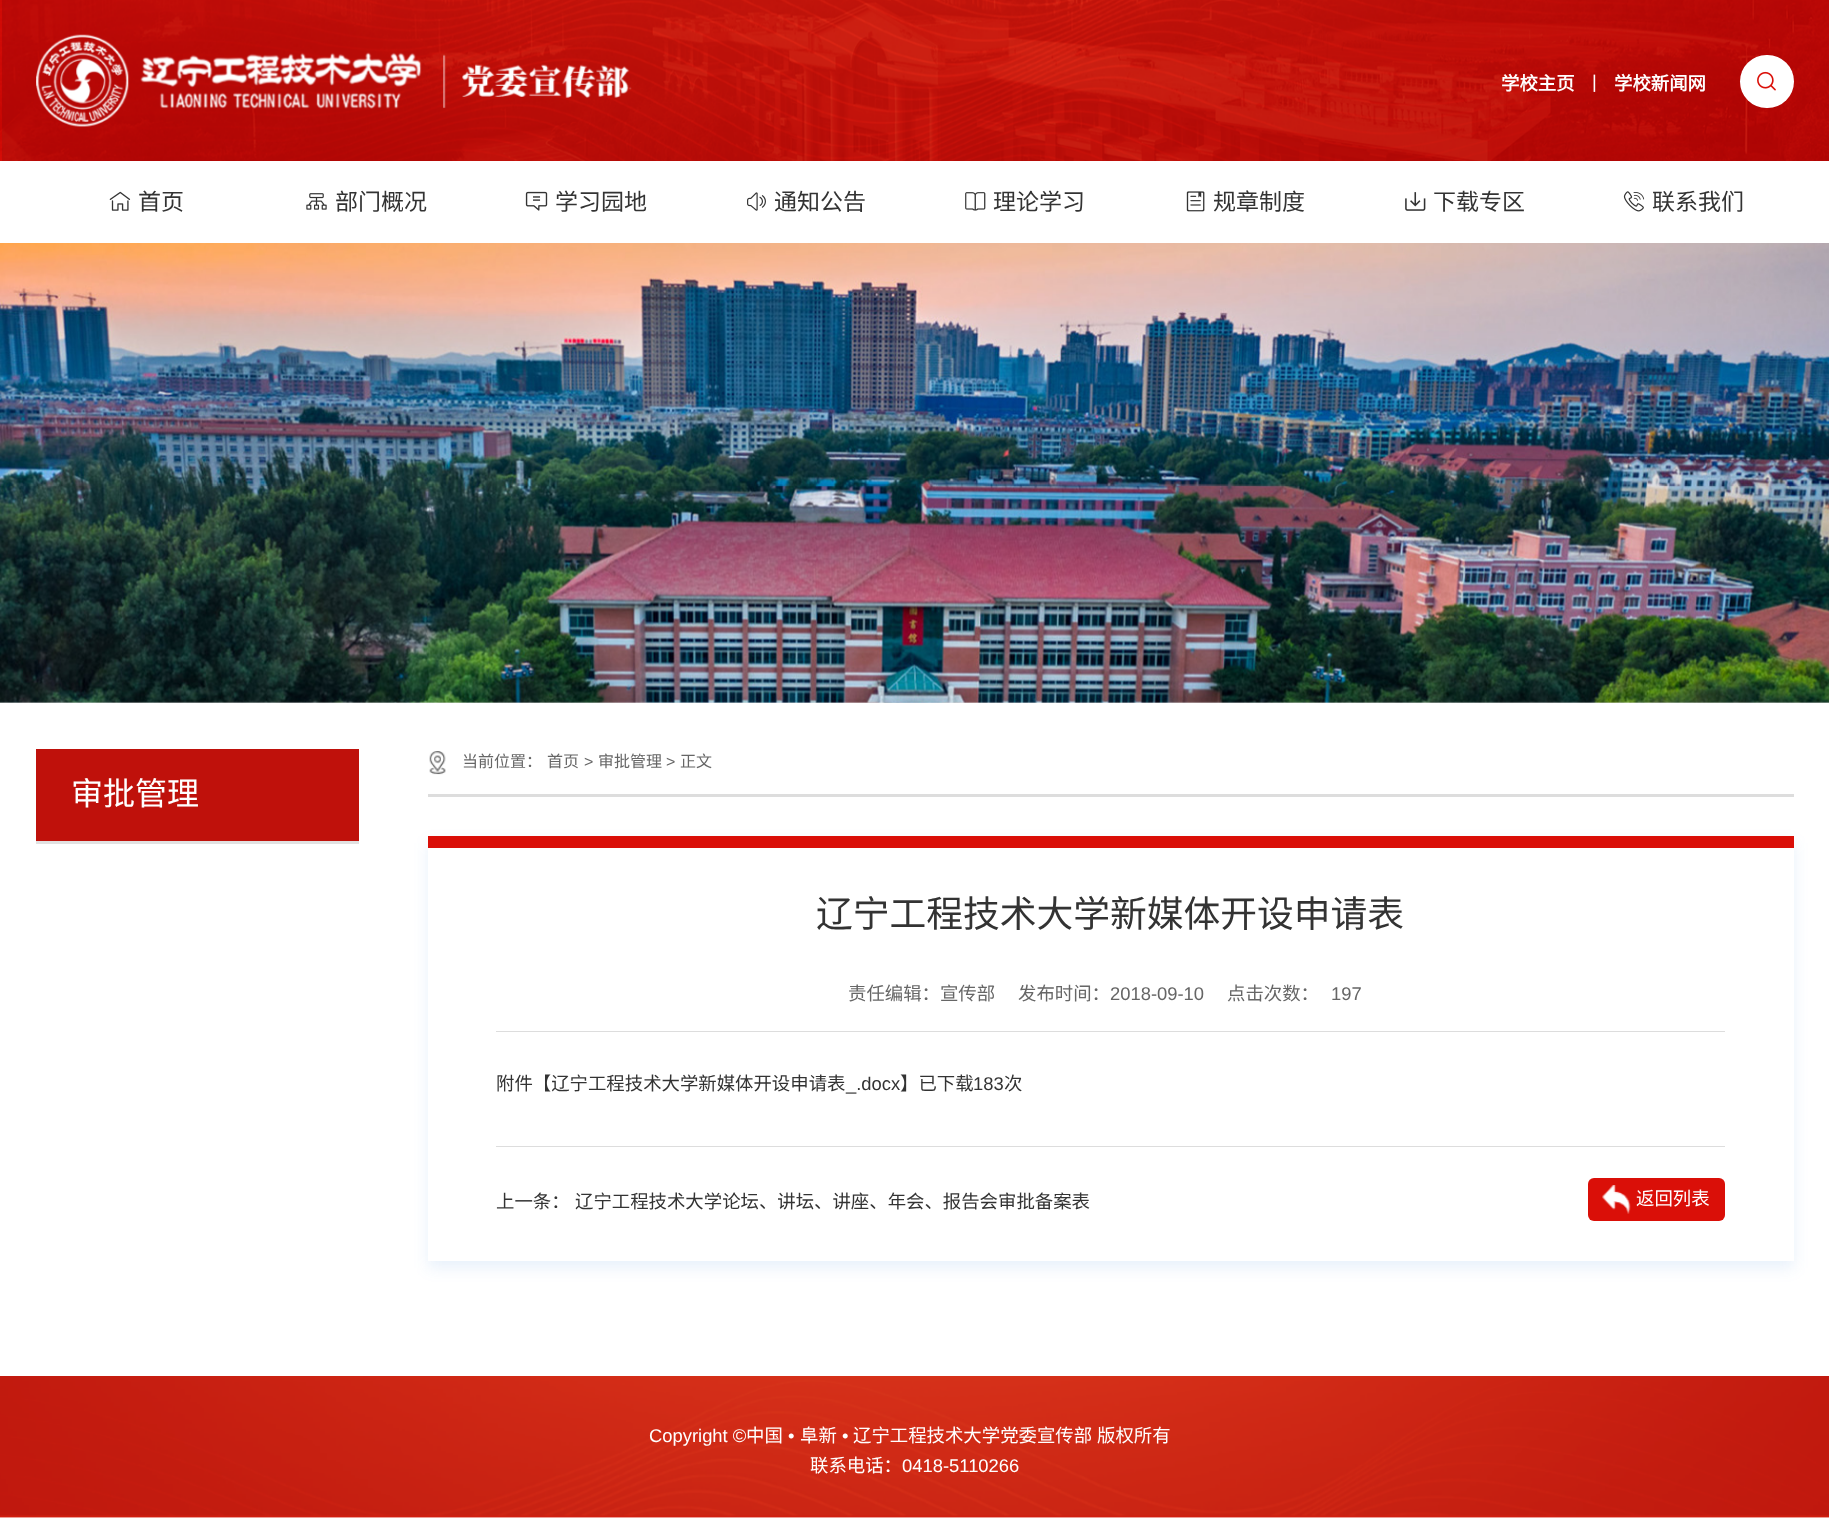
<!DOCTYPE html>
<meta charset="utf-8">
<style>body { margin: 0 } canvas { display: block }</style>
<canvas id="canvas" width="1829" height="1527"></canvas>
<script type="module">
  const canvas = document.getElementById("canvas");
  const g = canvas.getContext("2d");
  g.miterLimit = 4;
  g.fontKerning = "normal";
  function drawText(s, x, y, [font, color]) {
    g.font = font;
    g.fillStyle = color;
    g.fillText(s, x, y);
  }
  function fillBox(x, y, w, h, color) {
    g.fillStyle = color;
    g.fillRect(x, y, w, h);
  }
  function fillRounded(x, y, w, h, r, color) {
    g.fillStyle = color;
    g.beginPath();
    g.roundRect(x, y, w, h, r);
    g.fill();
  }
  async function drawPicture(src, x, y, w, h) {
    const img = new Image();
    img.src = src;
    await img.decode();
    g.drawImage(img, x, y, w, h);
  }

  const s1 = ["bold 18.4px Noto Sans CJK SC", "#FFFFFF"];
  const s2 = ["18.4px Liberation Sans", "#FFFFFF"];
  const s3 = ["23px Noto Sans CJK SC", "#333333"];
  const s4 = ["32px Noto Sans CJK SC", "#FFFFFF"];
  const s5 = ["16px Noto Sans CJK SC", "#666666"];
  const s6 = ["16px Liberation Sans", "#666666"];
  const s7 = ["36.75px Noto Sans CJK SC", "#333333"];
  const s8 = ["18.4px Noto Sans CJK SC", "#666666"];
  const s9 = ["18.4px Liberation Sans", "#666666"];
  const s10 = ["18.4px Noto Sans CJK SC", "#333333"];
  const s11 = ["18.4px Liberation Sans", "#333333"];
  const s12 = ["18.4px Noto Sans CJK SC", "#FFFFFF"];

  fillBox(0, 0, 1829, 1527, "#FFFFFF");
  await drawPicture("pic1.png", 0, 0, 1829, 161);
  await drawPicture("pic2.png", 36, 34, 596, 93);
  drawText("学校主页", 1501, 90, s1);
  drawText("|", 1592, 88, s2);
  drawText("学校新闻网", 1614, 90, s1);
  fillRounded(1740, 55, 54, 53, 26.5, "#FFFFFF");
  await drawPicture("pic3.png", 1757, 71, 19, 20);
  await drawPicture("pic4.png", 109, 191, 22, 20);
  drawText("首页", 138, 210, s3);
  await drawPicture("pic5.png", 306, 193, 21, 17);
  drawText("部门概况", 335, 210, s3);
  await drawPicture("pic6.png", 525, 191, 23, 20);
  drawText("学习园地", 555, 210, s3);
  await drawPicture("pic7.png", 747, 192, 19, 19);
  drawText("通知公告", 774, 210, s3);
  await drawPicture("pic8.png", 965, 192, 21, 19);
  drawText("理论学习", 993, 210, s3);
  await drawPicture("pic9.png", 1186, 191, 19, 21);
  drawText("规章制度", 1213, 210, s3);
  await drawPicture("pic10.png", 1405, 192, 21, 19);
  drawText("下载专区", 1433, 210, s3);
  await drawPicture("pic11.png", 1623, 191, 22, 21);
  drawText("联系我们", 1652, 210, s3);
  fillBox(0, 701, 1829, 2, "#EEEEEE");
  await drawPicture("pic12.png", 0, 243, 1829, 460);
  fillBox(36, 749, 323, 92, "#BF110B");
  drawText("审批管理", 71, 805, s4);
  fillBox(36, 841, 323, 3, "#E1E1E1");
  fillBox(428, 794, 1366, 3, "#DDDDDD");
  await drawPicture("pic13.png", 429, 751, 17, 24);
  drawText("当前位置：", 462, 767, s5);
  drawText("首页", 547, 767, s5);
  drawText(">", 584, 767, s6);
  drawText("审批管理", 598, 767, s5);
  drawText(">", 666, 767, s6);
  drawText("正文", 680, 767, s5);
  g.fillStyle = "rgba(25, 119, 212, 0.1)";
  g.filter = "blur(7.5px)";
  g.beginPath();
  g.rect(428, 843, 1366, 425);
  g.fill();
  g.filter = "none";
  fillBox(428, 848, 1366, 413, "#FFFFFF");
  fillBox(428, 836, 1366, 12, "#DA0F08");
  drawText("辽宁工程技术大学新媒体开设申请表", 816, 927, s7);
  fillBox(496, 1031, 1229, 1, "#DDDDDD");
  drawText("责任编辑：宣传部", 848, 1000, s8);
  drawText("发布时间：", 1018, 1000, s8);
  drawText("2018-09-10", 1110, 1000, s9);
  drawText("点击次数：", 1227, 1000, s8);
  drawText("197", 1331, 1000, s9);
  drawText("附件【辽宁工程技术大学新媒体开设申请表", 496, 1090, s10);
  drawText("_.docx", 846, 1090, s11);
  drawText("】已下载", 900, 1090, s10);
  drawText("183", 973, 1090, s11);
  drawText("次", 1004, 1090, s10);
  fillBox(496, 1146, 1229, 1, "#DDDDDD");
  drawText("上一条：", 496, 1208, s10);
  drawText("辽宁工程技术大学论坛、讲坛、讲座、年会、报告会审批备案表", 575, 1208, s10);
  fillRounded(1588, 1178, 137, 43, 6, "#DA0F08");
  await drawPicture("pic14.png", 1602, 1185, 29, 29);
  drawText("返回列表", 1636, 1205, s12);
  await drawPicture("pic15.png", 0, 1376, 1829, 142);
  drawText("Copyright ©", 649, 1442, s2);
  drawText("中国", 746, 1442, s12);
  drawText("•", 788, 1442, s2);
  drawText("阜新", 800, 1442, s12);
  drawText("•", 842, 1442, s2);
  drawText("辽宁工程技术大学党委宣传部", 853, 1442, s12);
  drawText("版权所有", 1097, 1442, s12);
  drawText("联系电话：", 810, 1472, s12);
  drawText("0418-5110266", 902, 1472, s2);
</script>
